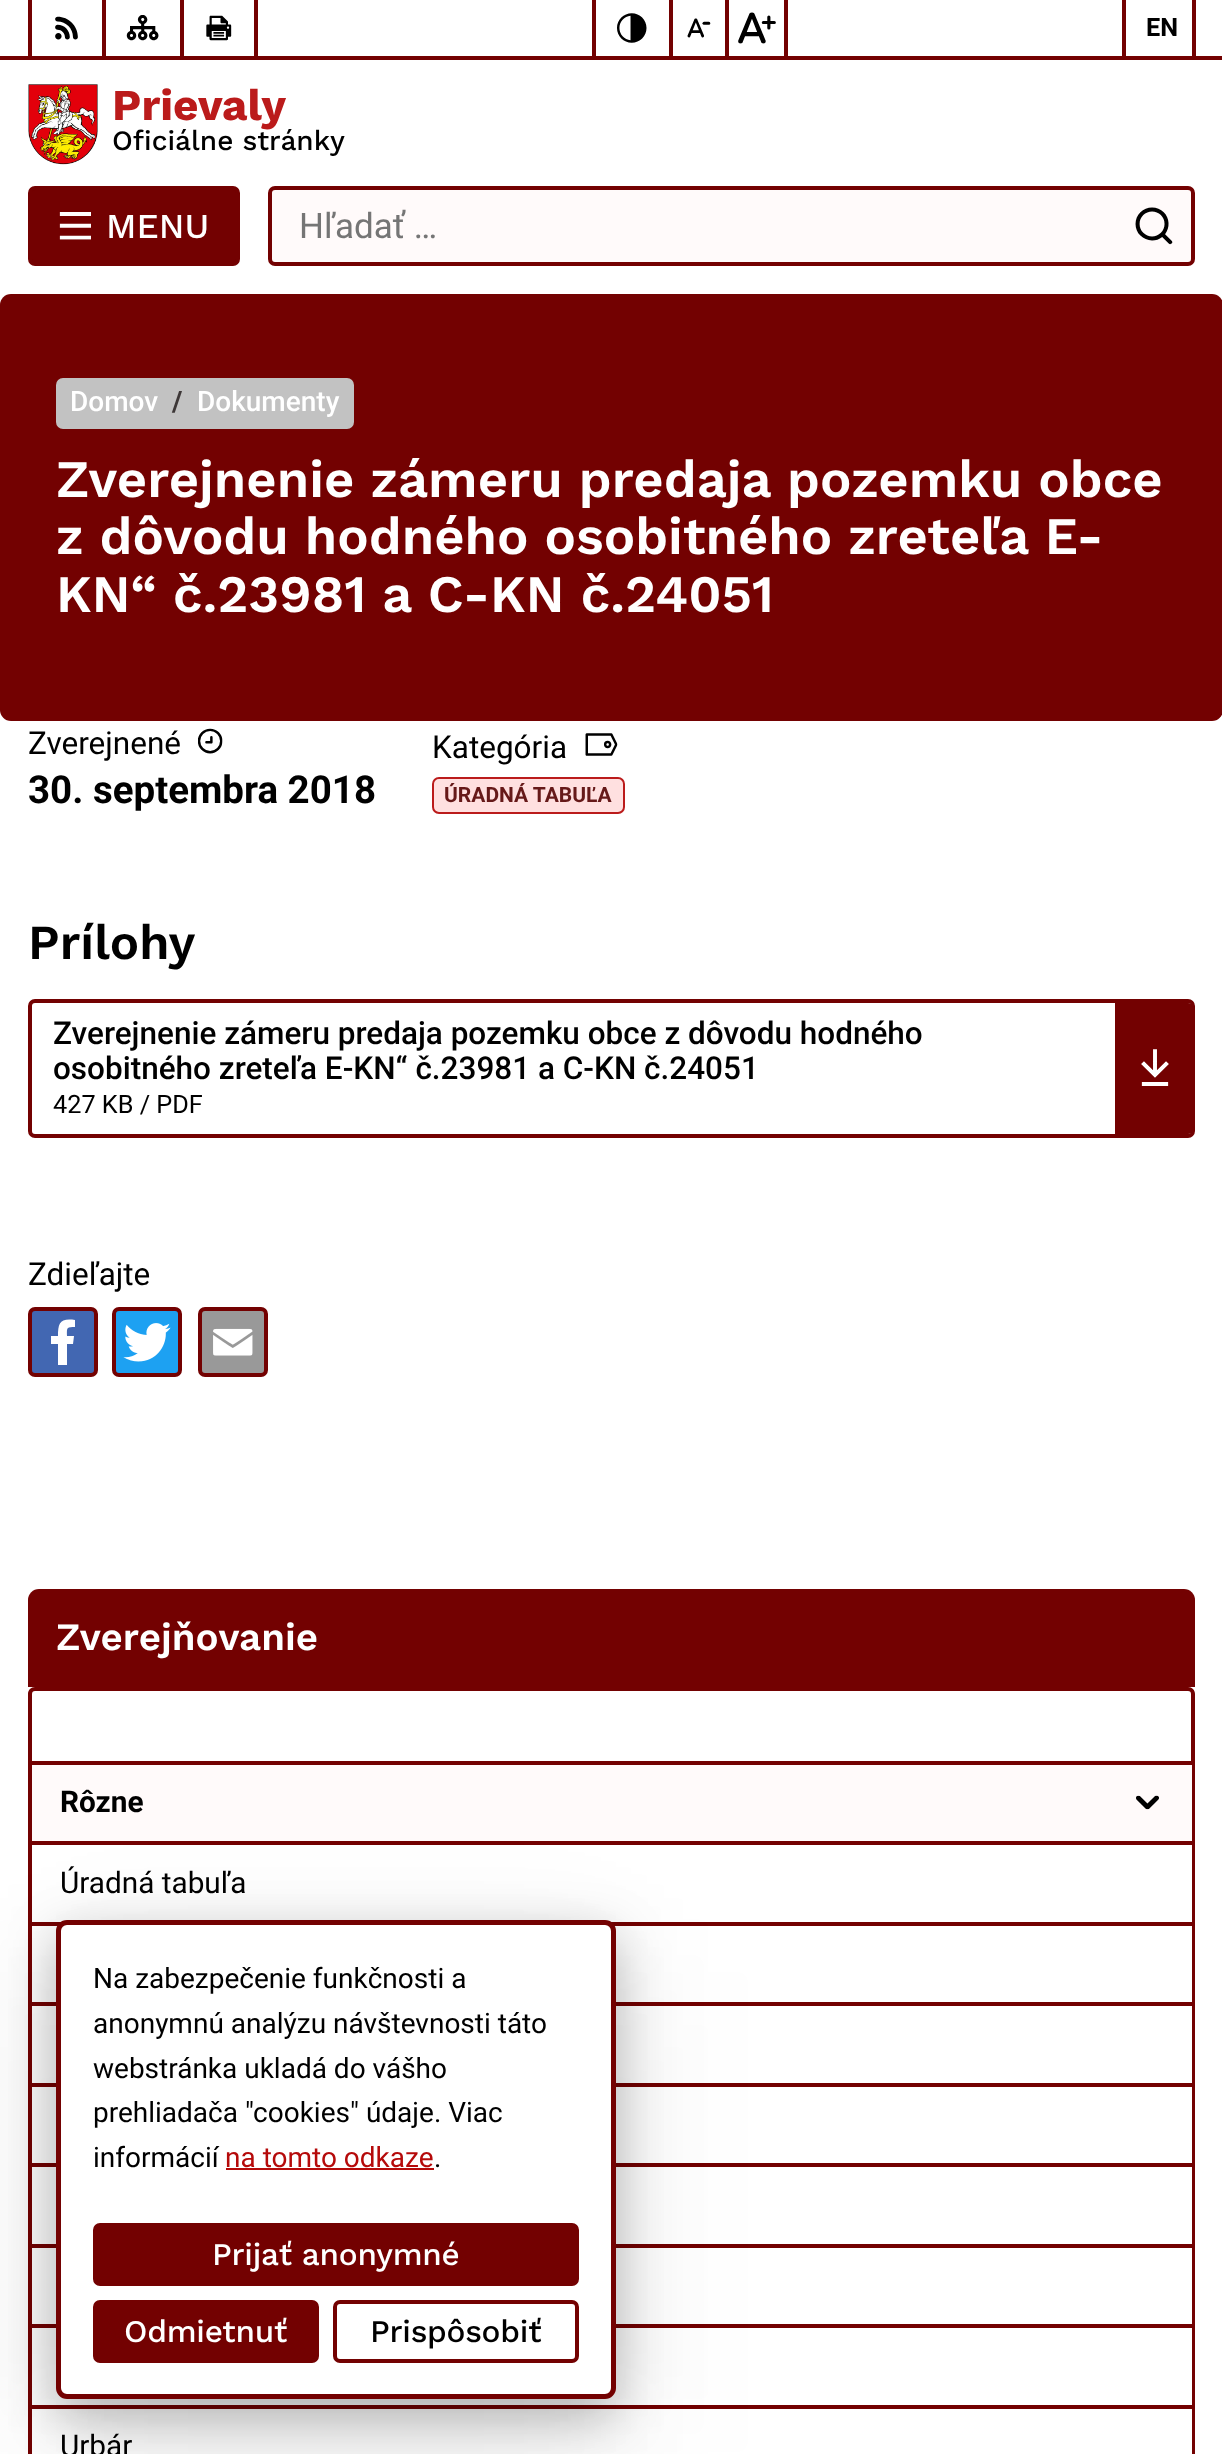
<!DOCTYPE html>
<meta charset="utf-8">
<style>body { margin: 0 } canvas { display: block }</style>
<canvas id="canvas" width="1222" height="2454"></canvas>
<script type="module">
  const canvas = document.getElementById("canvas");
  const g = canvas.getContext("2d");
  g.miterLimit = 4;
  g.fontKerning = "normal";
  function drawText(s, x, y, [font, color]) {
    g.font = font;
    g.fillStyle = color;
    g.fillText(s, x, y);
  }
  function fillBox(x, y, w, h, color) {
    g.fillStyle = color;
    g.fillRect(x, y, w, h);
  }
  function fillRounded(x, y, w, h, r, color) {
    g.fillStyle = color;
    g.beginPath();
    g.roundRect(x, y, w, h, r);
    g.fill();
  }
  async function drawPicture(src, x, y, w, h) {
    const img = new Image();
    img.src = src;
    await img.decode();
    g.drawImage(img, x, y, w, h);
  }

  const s1 = ["bold 25.25px Roboto", "#000000"];
  const s2 = ["bold 44px Work Sans", "#BB1B1B"];
  const s3 = ["500 28px Work Sans", "#000000"];
  const s4 = ["500 35px Work Sans", "#FFFFFF"];
  const s5 = ["35px Roboto", "#757575"];
  const s6 = ["500 28px Roboto", "#FFFFFF"];
  const s7 = ["bold 28px Roboto", "#3D3737"];
  const s8 = ["600 52.5px Work Sans", "#FFFFFF"];
  const s9 = ["31.5px Roboto", "#000000"];
  const s10 = ["bold 38.5px Roboto", "#000000"];
  const s11 = ["bold 21px Roboto", "#661919"];
  const s12 = ["600 49px Work Sans", "#000000"];
  const s13 = ["500 31.5px Roboto", "#000000"];
  const s14 = ["25.25px Roboto", "#000000"];
  const s15 = ["600 38.5px Work Sans", "#FFFFFF"];
  const s16 = ["bold 29.75px Roboto", "#000000"];
  const s17 = ["29.75px Roboto", "#000000"];
  const s18 = ["28px Roboto", "#000000"];
  const s19 = ["28px Roboto", "#B50A0A"];
  const s20 = ["500 31.5px Work Sans", "#FFFFFF"];
  const s21 = ["500 31.5px Work Sans", "#000000"];

  fillBox(0, 0, 1222, 2454, "#FFFFFF");
  fillBox(254, 0, 4, 56, "#730101");
  fillBox(28, 0, 4, 56, "#730101");
  fillBox(102, 0, 4, 56, "#730101");
  await drawPicture("pic1.png", 55, 16, 23, 24);
  fillBox(180, 0, 4, 56, "#730101");
  await drawPicture("pic2.png", 126, 15, 33, 26);
  await drawPicture("pic3.png", 206, 15, 26, 26);
  fillBox(784, 0, 4, 56, "#730101");
  fillBox(592, 0, 4, 56, "#730101");
  fillBox(669, 0, 4, 56, "#730101");
  await drawPicture("pic4.png", 617, 13, 30, 30);
  fillBox(725, 0, 4, 56, "#730101");
  await drawPicture("pic5.png", 687, 18, 24, 20);
  await drawPicture("pic6.png", 738, 12, 38, 32);
  fillBox(1192, 0, 4, 56, "#730101");
  fillBox(1122, 0, 4, 56, "#730101");
  drawText("EN", 1146, 36, s1);
  fillBox(0, 56, 1222, 4, "#730101");
  await drawPicture("pic7.png", 28, 84, 70, 81);
  drawText("Prievaly", 112, 120, s2);
  drawText("Oficiálne stránky", 112, 150, s3);
  g.fillStyle = "#730101";
  g.beginPath();
  g.roundRect(30, 188, 208, 76, 5);
  g.fill();
  g.strokeStyle = "#730101";
  g.lineWidth = 4;
  g.stroke();
  await drawPicture("pic8.png", 59, 212, 32, 28);
  drawText("MENU", 106, 238, s4);
  g.fillStyle = "#FFFAFA";
  g.beginPath();
  g.roundRect(270, 188, 923, 76, 5);
  g.fill();
  g.stroke();
  drawText("Hľadať …", 299, 238, s5);
  await drawPicture("pic9.png", 1135, 207, 38, 38);
  fillRounded(0, 294, 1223, 427, 11, "#730101");
  fillRounded(56, 378, 298, 51, 7, "#C2C2C2");
  drawText("Domov", 70, 411, s6);
  drawText("/", 172, 411, s7);
  drawText("Dokumenty", 197, 411, s6);
  drawText("Zverejnenie zámeru predaja pozemku obce", 56, 497, s8);
  drawText("z dôvodu hodného osobitného zreteľa E-", 56, 554, s8);
  drawText("KN“ č.23981 a C-KN č.24051", 56, 612, s8);
  drawText("Zverejnené", 28, 754, s9);
  await drawPicture("pic10.png", 198, 728, 25, 26);
  drawText("30. septembra 2018", 28, 803, s10);
  drawText("Kategória", 432, 758, s9);
  await drawPicture("pic11.png", 585, 733, 33, 23);
  g.fillStyle = "#FFE0E0";
  g.beginPath();
  g.roundRect(433, 778, 191, 35, 6);
  g.fill();
  g.strokeStyle = "#BB1B1B";
  g.lineWidth = 2;
  g.stroke();
  drawText("ÚRADNÁ TABUĽA", 444, 802, s11);
  drawText("Prílohy", 28, 959, s12);
  g.beginPath();
  g.roundRect(30, 1001, 1163, 135, 5);
  g.strokeStyle = "#730101";
  g.lineWidth = 4;
  g.stroke();
  drawText("Zverejnenie zámeru predaja pozemku obce z dôvodu hodného", 53, 1044, s13);
  drawText("osobitného zreteľa E-KN“ č.23981 a C-KN č.24051", 53, 1079, s13);
  drawText("427 KB / PDF", 53, 1113, s14);
  g.fillStyle = "#730101";
  g.beginPath();
  g.roundRect(1115, 1003, 77, 131, [0, 4, 4, 0]);
  g.fill();
  await drawPicture("pic12.png", 1141, 1049, 28, 37);
  drawText("Zdieľajte", 28, 1285, s9);
  g.fillStyle = "#4267B2";
  g.beginPath();
  g.roundRect(30, 1309, 66, 66, 5);
  g.fill();
  g.stroke();
  g.fillStyle = "#FFFFFF";
  g.beginPath();
  g.moveTo(67, 1365);
  g.lineTo(67, 1344);
  g.lineTo(73, 1344);
  g.lineTo(74, 1336);
  g.lineTo(67, 1336);
  g.bezierCurveTo(67, 1328, 66, 1327, 75, 1327);
  g.lineTo(75, 1320);
  g.bezierCurveTo(60, 1318, 58, 1323, 58, 1336);
  g.lineTo(51, 1336);
  g.lineTo(51, 1344);
  g.lineTo(58, 1344);
  g.lineTo(58, 1365);
  g.lineTo(66, 1365);
  g.closePath();
  g.fill();
  g.fillStyle = "#1DA1F2";
  g.beginPath();
  g.roundRect(114, 1309, 66, 66, 5);
  g.fill();
  g.stroke();
  await drawPicture("pic13.png", 123, 1323, 48, 39);
  g.fillStyle = "#999999";
  g.beginPath();
  g.roundRect(200, 1309, 66, 66, 5);
  g.fill();
  g.stroke();
  await drawPicture("pic14.png", 213, 1328, 40, 28);
  g.fillStyle = "#730101";
  g.beginPath();
  g.roundRect(28, 1589, 1167, 98, [11, 11, 0, 0]);
  g.fill();
  drawText("Zverejňovanie", 56, 1650, s15);
  g.fillStyle = "#730101";
  g.beginPath();
  g.moveTo(35, 1687);
  g.bezierCurveTo(31, 1687, 28, 1690, 28, 1694);
  g.lineTo(28, 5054);
  g.bezierCurveTo(28, 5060, 33, 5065, 39, 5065);
  g.lineTo(1184, 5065);
  g.bezierCurveTo(1190, 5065, 1195, 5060, 1195, 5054);
  g.lineTo(1195, 1694);
  g.bezierCurveTo(1195, 1690, 1192, 1687, 1188, 1687);
  g.closePath();
  g.moveTo(35, 1691);
  g.bezierCurveTo(33, 1691, 32, 1692, 32, 1694);
  g.lineTo(32, 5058);
  g.bezierCurveTo(32, 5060, 33, 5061, 35, 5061);
  g.lineTo(1188, 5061);
  g.bezierCurveTo(1190, 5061, 1191, 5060, 1191, 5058);
  g.lineTo(1191, 1694);
  g.bezierCurveTo(1191, 1692, 1190, 1691, 1188, 1691);
  g.closePath();
  g.fill("evenodd");
  fillBox(1191, 1845, 1, 609, "#FFFFFF");
  fillBox(32, 1765, 1160, 76, "#FFFAFA");
  fillBox(32, 1761, 1160, 4, "#730101");
  drawText("Rôzne", 60, 1812, s16);
  await drawPicture("pic15.png", 1136, 1795, 23, 15);
  fillBox(32, 1841, 1160, 4, "#730101");
  drawText("Úradná tabuľa", 60, 1893, s17);
  fillBox(32, 1922, 1160, 4, "#730101");
  fillBox(32, 2002, 1160, 4, "#730101");
  fillBox(32, 2083, 1160, 4, "#730101");
  fillBox(32, 2163, 1160, 4, "#730101");
  fillBox(32, 2244, 1160, 4, "#730101");
  fillBox(32, 2324, 1160, 4, "#730101");
  fillBox(32, 2405, 1160, 4, "#730101");
  drawText("Urbár", 60, 2456, s17);
  g.fillStyle = "rgba(0, 0, 0, 0.05)";
  g.filter = "blur(79px)";
  g.beginPath();
  g.roundRect(56, 1972, 560, 480, 11);
  g.fill();
  g.filter = "none";
  g.filter = "blur(52.5px)";
  g.beginPath();
  g.roundRect(56, 1955, 560, 479, 11);
  g.fill();
  g.filter = "none";
  g.fillStyle = "rgba(0, 0, 0, 0.25)";
  g.filter = "blur(26px)";
  g.beginPath();
  g.roundRect(56, 1937, 560, 480, 11);
  g.fill();
  g.filter = "none";
  g.fillStyle = "#FFFFFF";
  g.beginPath();
  g.roundRect(58.5, 1922.5, 555, 474, 8.5);
  g.fill();
  g.lineWidth = 5;
  g.stroke();
  drawText("Na zabezpečenie funkčnosti a", 93, 1988, s18);
  drawText("anonymnú analýzu návštevnosti táto", 93, 2033, s18);
  drawText("webstránka ukladá do vášho", 93, 2078, s18);
  drawText("prehliadača \"cookies\" údaje. Viac", 93, 2122, s18);
  drawText("informácií", 93, 2167, s18);
  drawText("na tomto odkaze", 225, 2167, s19);
  fillBox(226, 2168, 208, 2, "#B50A0A");
  drawText(".", 434, 2167, s18);
  g.fillStyle = "#730101";
  g.beginPath();
  g.roundRect(95, 2225, 482, 59, 5);
  g.fill();
  g.lineWidth = 4;
  g.stroke();
  g.letterSpacing = "-0.25px";
  drawText("Prijať anonymné", 212, 2265, s20);
  g.fillStyle = "#730101";
  g.beginPath();
  g.roundRect(95, 2302, 222, 59, 5);
  g.fill();
  g.stroke();
  drawText("Odmietnuť", 124, 2342, s20);
  g.beginPath();
  g.roundRect(335, 2302, 242, 59, 5);
  g.stroke();
  drawText("Prispôsobiť", 370, 2342, s21);
</script>
